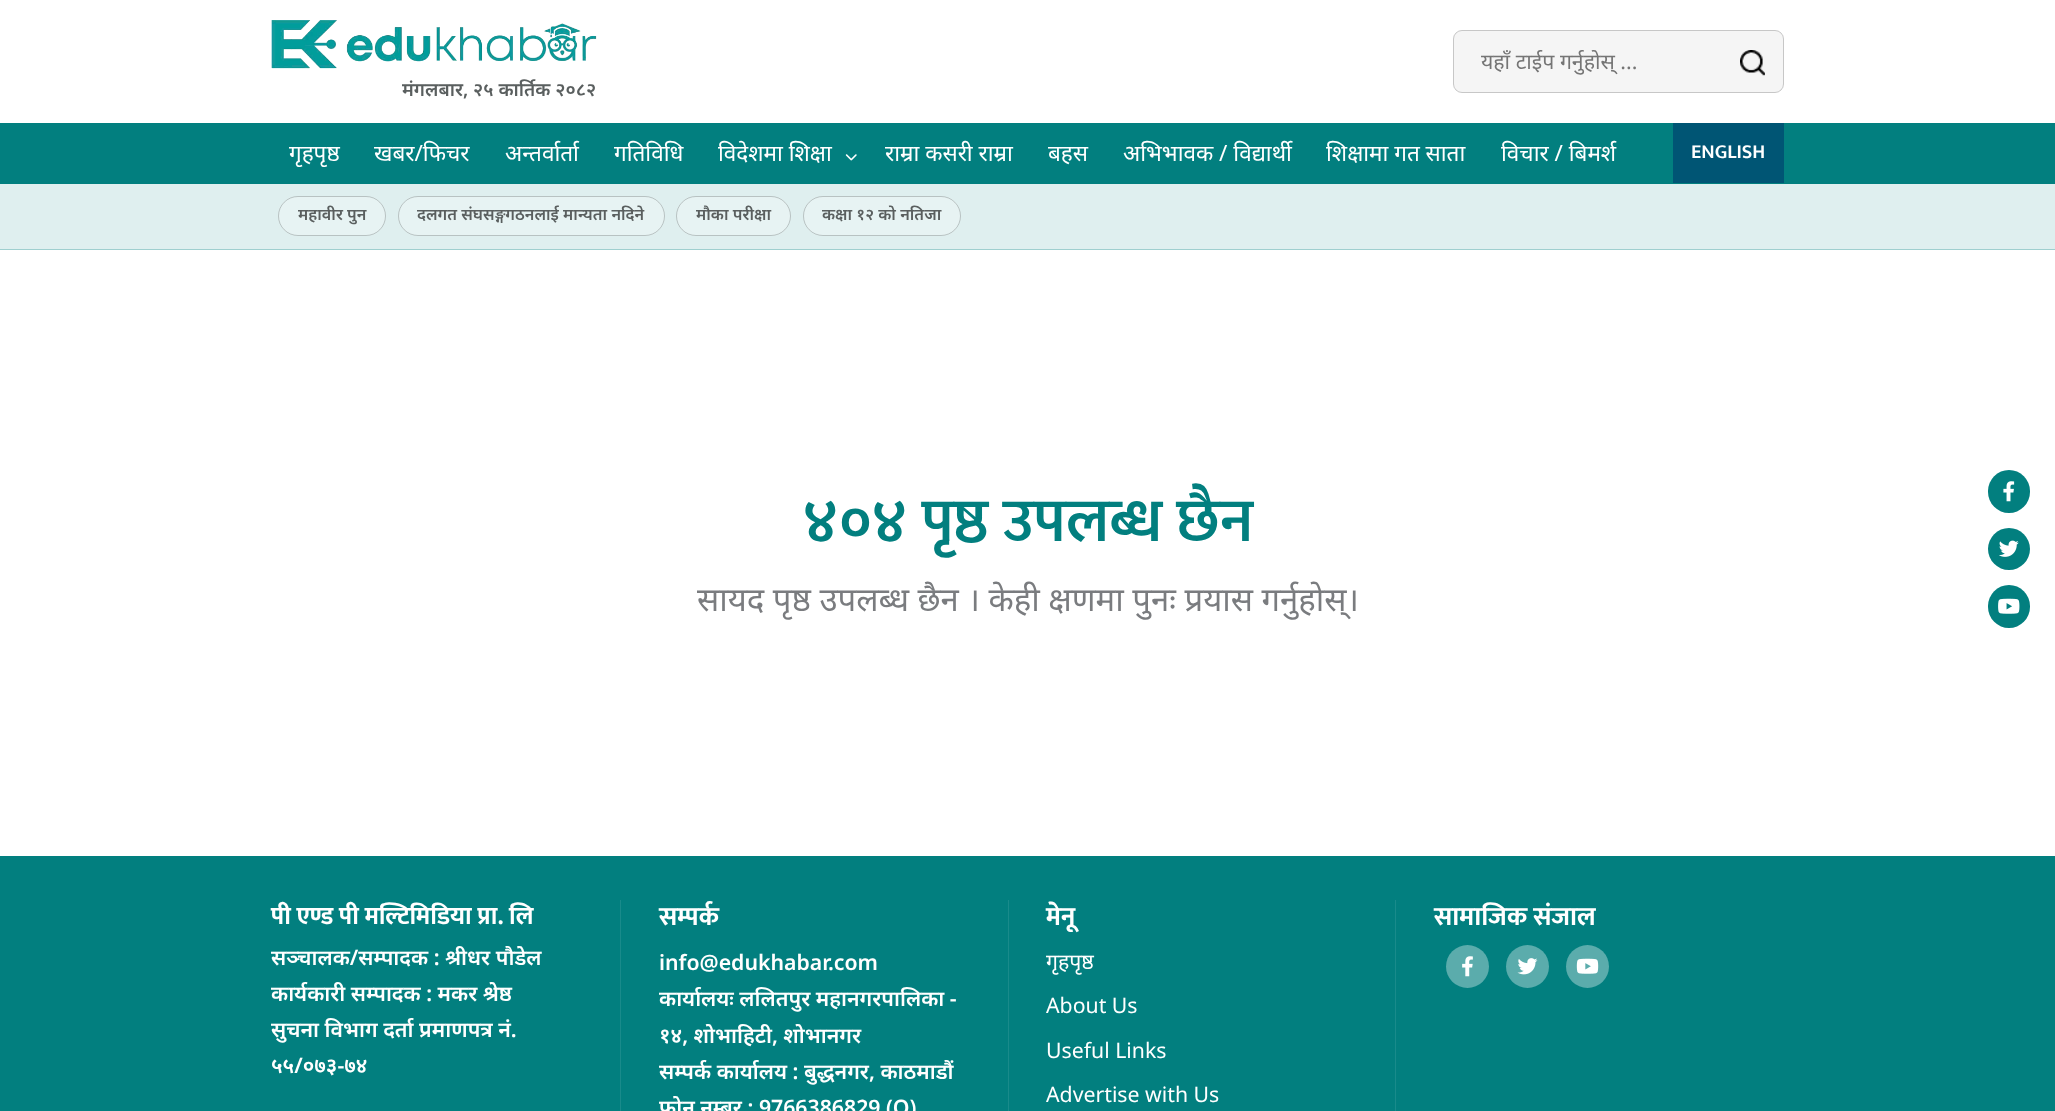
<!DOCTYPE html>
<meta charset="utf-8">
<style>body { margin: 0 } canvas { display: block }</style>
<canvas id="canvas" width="2055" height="1111"></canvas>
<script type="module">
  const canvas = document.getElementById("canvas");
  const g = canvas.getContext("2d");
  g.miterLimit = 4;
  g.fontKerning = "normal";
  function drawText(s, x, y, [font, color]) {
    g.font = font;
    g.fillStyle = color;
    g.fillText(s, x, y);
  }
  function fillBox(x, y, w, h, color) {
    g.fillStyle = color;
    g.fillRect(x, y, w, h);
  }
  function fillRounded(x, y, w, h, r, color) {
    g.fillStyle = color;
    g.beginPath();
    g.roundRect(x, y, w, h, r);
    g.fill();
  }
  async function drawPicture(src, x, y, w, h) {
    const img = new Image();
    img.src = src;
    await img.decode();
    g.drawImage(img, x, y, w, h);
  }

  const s1 = ["21.25px Noto Sans", "#757575"];
  const s2 = ["600 18.75px Noto Sans", "#5A5F5F"];
  const s3 = ["22.5px Noto Sans", "#FFFFFF"];
  const s4 = ["600 20px Mukta", "#FFFFFF"];
  const s5 = ["600 16.25px Noto Sans", "#5A5F5F"];
  const s6 = ["600 61.75px Mukta", "#027F7F"];
  const s7 = ["32.9px Noto Sans", "#7A7C7F"];
  const s8 = ["bold 25px Mukta", "#FFFFFF"];
  const s9 = ["600 21.25px Noto Sans", "#FFFFFF"];
  const s10 = ["bold 26.25px Mukta", "#FFFFFF"];
  const s11 = ["21.25px Noto Sans", "#FFFFFF"];

  fillBox(0, 0, 2055, 1111, "#FFFFFF");
  fillRounded(1453, 30, 331, 63, 9, "#F5F5F5");
  g.beginPath();
  g.roundRect(1453.5, 30.5, 330, 62, 8.5);
  g.strokeStyle = "rgba(17, 17, 17, 0.2)";
  g.stroke();
  drawText("यहाँ टाईप गर्नुहोस् ...", 1481, 69, s1);
  await drawPicture("pic1.png", 1740, 50, 25, 26);
  await drawPicture("pic2.png", 271, 20, 326, 49);
  drawText("मंगलबार, २५ कार्तिक २०८२", 402, 96, s2);
  fillBox(0, 123, 2055, 61, "#027F7F");
  drawText("गृहपृष्ठ", 289, 161, s3);
  drawText("खबर/फिचर", 374, 161, s3);
  drawText("अन्तर्वार्ता", 505, 161, s3);
  drawText("गतिविधि", 614, 161, s3);
  drawText("विदेशमा शिक्षा", 718, 161, s3);
  await drawPicture("pic3.png", 845, 154, 12, 7);
  drawText("राम्रा कसरी राम्रा", 885, 161, s3);
  drawText("बहस", 1048, 161, s3);
  drawText("अभिभावक / विद्यार्थी", 1123, 161, s3);
  drawText("शिक्षामा गत साता", 1326, 161, s3);
  drawText("विचार / बिमर्श", 1501, 161, s3);
  fillBox(1673, 123, 111, 60, "#005574");
  drawText("ENGLISH", 1691, 158, s4);
  fillBox(0, 184, 2055, 65, "#DFEFEF");
  fillBox(0, 249, 2055, 1, "#9FCFCF");
  fillRounded(278, 196, 108, 40, 20, "#E7F3F3");
  g.beginPath();
  g.roundRect(278.5, 196.5, 107, 39, 19.5);
  g.strokeStyle = "rgba(0, 0, 0, 0.2)";
  g.stroke();
  drawText("महावीर पुन", 298, 220, s5);
  fillRounded(398, 196, 267, 40, 20, "#E7F3F3");
  g.beginPath();
  g.roundRect(398.5, 196.5, 266, 39, 19.5);
  g.stroke();
  drawText("दलगत संघसङ्गगठनलाई मान्यता नदिने", 417, 220, s5);
  fillRounded(676, 196, 115, 40, 20, "#E7F3F3");
  g.beginPath();
  g.roundRect(676.5, 196.5, 114, 39, 19.5);
  g.stroke();
  drawText("मौका परीक्षा", 696, 220, s5);
  fillRounded(803, 196, 158, 40, 20, "#E7F3F3");
  g.beginPath();
  g.roundRect(803.5, 196.5, 157, 39, 19.5);
  g.stroke();
  drawText("कक्षा १२ को नतिजा", 822, 220, s5);
  drawText("४०४ पृष्ठ उपलब्ध छैन", 802, 541, s6);
  drawText("सायद पृष्ठ उपलब्ध छैन । केही क्षणमा पुनः प्रयास गर्नुहोस्।", 697, 611, s7);
  fillRounded(1988, 470, 42, 43, 21, "#027F7F");
  await drawPicture("pic4.png", 2003, 481, 12, 21);
  g.beginPath();
  g.arc(2009, 549, 21, 0, Math.PI * 2);
  g.fill();
  await drawPicture("pic5.png", 1999, 540, 20, 17);
  fillRounded(1988, 585, 42, 43, 21, "#027F7F");
  await drawPicture("pic6.png", 1998, 598, 22, 16);
  fillBox(0, 856, 2055, 255, "#027F7F");
  fillBox(620, 900, 1, 211, "#198B8B");
  drawText("पी एण्ड पी मल्टिमिडिया प्रा. लि", 271, 924, s8);
  drawText("सञ्चालक/सम्पादक : श्रीधर पौडेल", 271, 965, s9);
  drawText("कार्यकारी सम्पादक : मकर श्रेष्ठ", 271, 1001, s9);
  drawText("सुचना विभाग दर्ता प्रमाणपत्र नं.", 271, 1037, s9);
  drawText("५५/०७३-७४", 271, 1073, s9);
  fillBox(1008, 900, 1, 211, "#198B8B");
  drawText("सम्पर्क", 659, 925, s10);
  drawText("info@edukhabar.com", 659, 970, s9);
  drawText("कार्यालयः ललितपुर महानगरपालिका -", 659, 1006, s9);
  drawText("१४, शोभाहिटी, शोभानगर", 659, 1043, s9);
  drawText("सम्पर्क कार्यालय : बुद्धनगर, काठमाडौं", 659, 1079, s9);
  drawText("फोन नम्बर : 9766386829 (O)", 659, 1115, s9);
  fillBox(1395, 900, 1, 211, "#198B8B");
  drawText("मेनू", 1046, 925, s10);
  drawText("गृहपृष्ठ", 1046, 969, s11);
  drawText("About Us", 1046, 1013, s11);
  drawText("Useful Links", 1046, 1058, s11);
  drawText("Advertise with Us", 1046, 1102, s11);
  drawText("सामाजिक संजाल", 1434, 925, s10);
  g.fillStyle = "#5BACAC";
  g.beginPath();
  g.arc(1467.5, 966.5, 21.5, 0, Math.PI * 2);
  g.fill();
  await drawPicture("pic7.png", 1462, 956, 11, 21);
  g.beginPath();
  g.arc(1527.5, 966.5, 21.5, 0, Math.PI * 2);
  g.fill();
  await drawPicture("pic8.png", 1517, 958, 21, 17);
  g.beginPath();
  g.arc(1587.5, 966.5, 21.5, 0, Math.PI * 2);
  g.fill();
  await drawPicture("pic9.png", 1576, 958, 23, 16);
</script>
